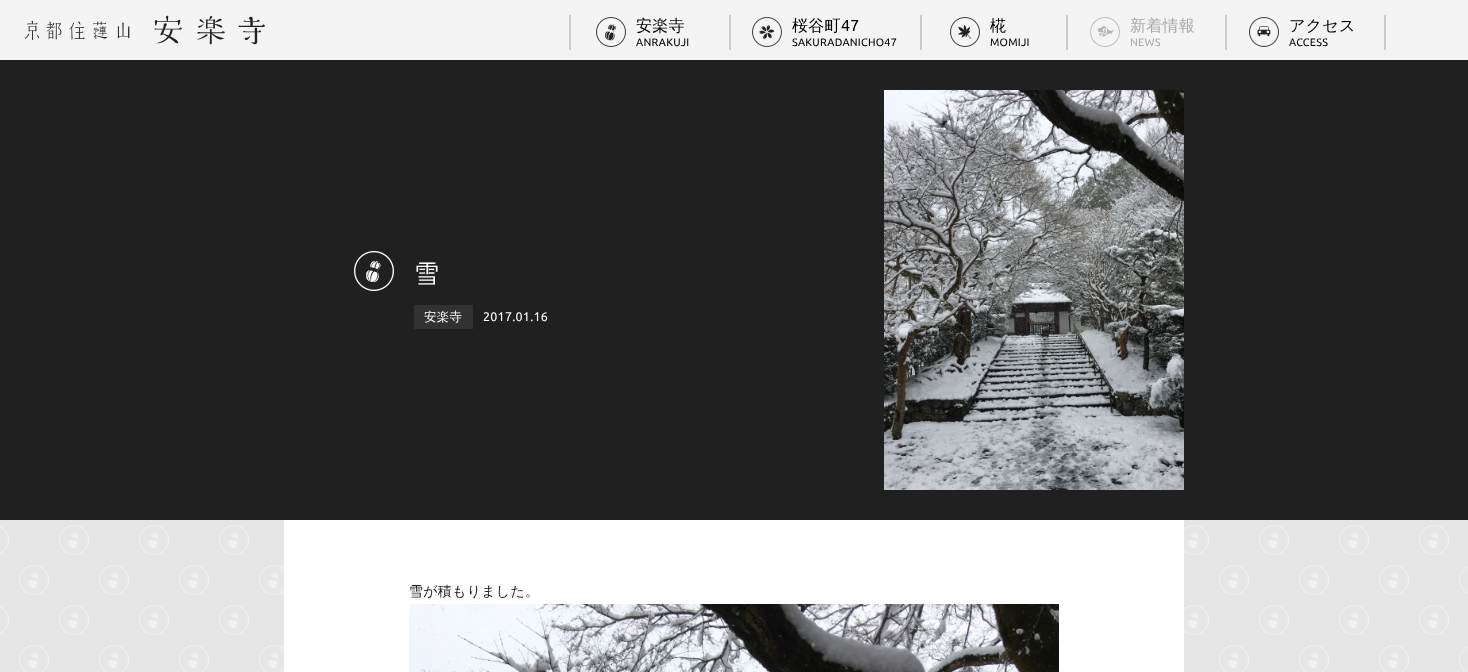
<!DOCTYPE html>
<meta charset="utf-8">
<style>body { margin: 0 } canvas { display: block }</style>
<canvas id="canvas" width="1468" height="672"></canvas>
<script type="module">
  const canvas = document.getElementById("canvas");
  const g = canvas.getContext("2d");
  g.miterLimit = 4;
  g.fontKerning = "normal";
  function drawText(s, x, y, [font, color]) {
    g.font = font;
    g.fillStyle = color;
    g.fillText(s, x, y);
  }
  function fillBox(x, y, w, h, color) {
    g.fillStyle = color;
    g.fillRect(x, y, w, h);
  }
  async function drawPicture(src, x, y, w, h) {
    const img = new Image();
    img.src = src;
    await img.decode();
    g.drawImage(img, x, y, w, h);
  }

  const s1 = ["500 16px WenQuanYi Zen Hei", "#000000"];
  const s2 = ["10.75px Ubuntu", "#000000"];
  const s3 = ["16px Ubuntu", "#000000"];
  const s4 = ["500 16px WenQuanYi Zen Hei", "#ABABAB"];
  const s5 = ["10.75px Ubuntu", "#ABABAB"];
  const s6 = ["500 25px WenQuanYi Zen Hei", "#FFFFFF"];
  const s7 = ["500 12.5px WenQuanYi Zen Hei", "#FFFFFF"];
  const s8 = ["12.5px Ubuntu", "#FFFFFF"];
  const s9 = ["500 14px WenQuanYi Zen Hei", "#222222"];

  fillBox(0, 0, 1468, 672, "#202020");
  fillBox(0, 0, 1468, 60, "#F4F4F4");
  await drawPicture("pic1.png", 25, 15, 240, 30);
  fillBox(569, 15, 2, 35, "#CCCCCC");
  fillBox(729, 15, 2, 35, "#CCCCCC");
  await drawPicture("pic2.png", 596, 17, 30, 30);
  g.letterSpacing = "0.25px";
  drawText("安楽寺", 636, 31, s1);
  drawText("ANRAKUJI", 636, 46, s2);
  fillBox(920, 15, 2, 35, "#CCCCCC");
  await drawPicture("pic3.png", 752, 17, 30, 30);
  drawText("桜谷町", 792, 31, s1);
  drawText("47", 841, 31, s3);
  drawText("SAKURADANICHO47", 792, 46, s2);
  fillBox(1066, 15, 2, 35, "#CCCCCC");
  await drawPicture("pic4.png", 950, 17, 30, 30);
  drawText("椛", 990, 31, s1);
  drawText("MOMIJI", 990, 46, s2);
  fillBox(1225, 15, 2, 35, "#CCCCCC");
  await drawPicture("pic5.png", 1090, 17, 30, 30);
  drawText("新着情報", 1130, 31, s4);
  drawText("NEWS", 1130, 46, s5);
  fillBox(1384, 15, 2, 35, "#CCCCCC");
  await drawPicture("pic6.png", 1249, 17, 30, 30);
  drawText("アクセス", 1289, 31, s1);
  drawText("ACCESS", 1289, 46, s2);
  await drawPicture("pic7.png", 354, 251, 40, 40);
  drawText("雪", 414, 282, s6);
  fillBox(414, 305, 59, 24, "#323232");
  drawText("安楽寺", 424, 321, s7);
  drawText("2017.01.16", 483, 321, s8);
  await drawPicture("pic8.png", 884, 90, 300, 400);
  fillBox(0, 520, 1468, 5, "#E6E6E6");
  await drawPicture("pic9.png", 0, 525, 1468, 147);
  fillBox(284, 520, 900, 152, "#FFFFFF");
  drawText("雪が積もりました。", 409, 596, s9);
  await drawPicture("pic10.png", 409, 604, 650, 68);
</script>
